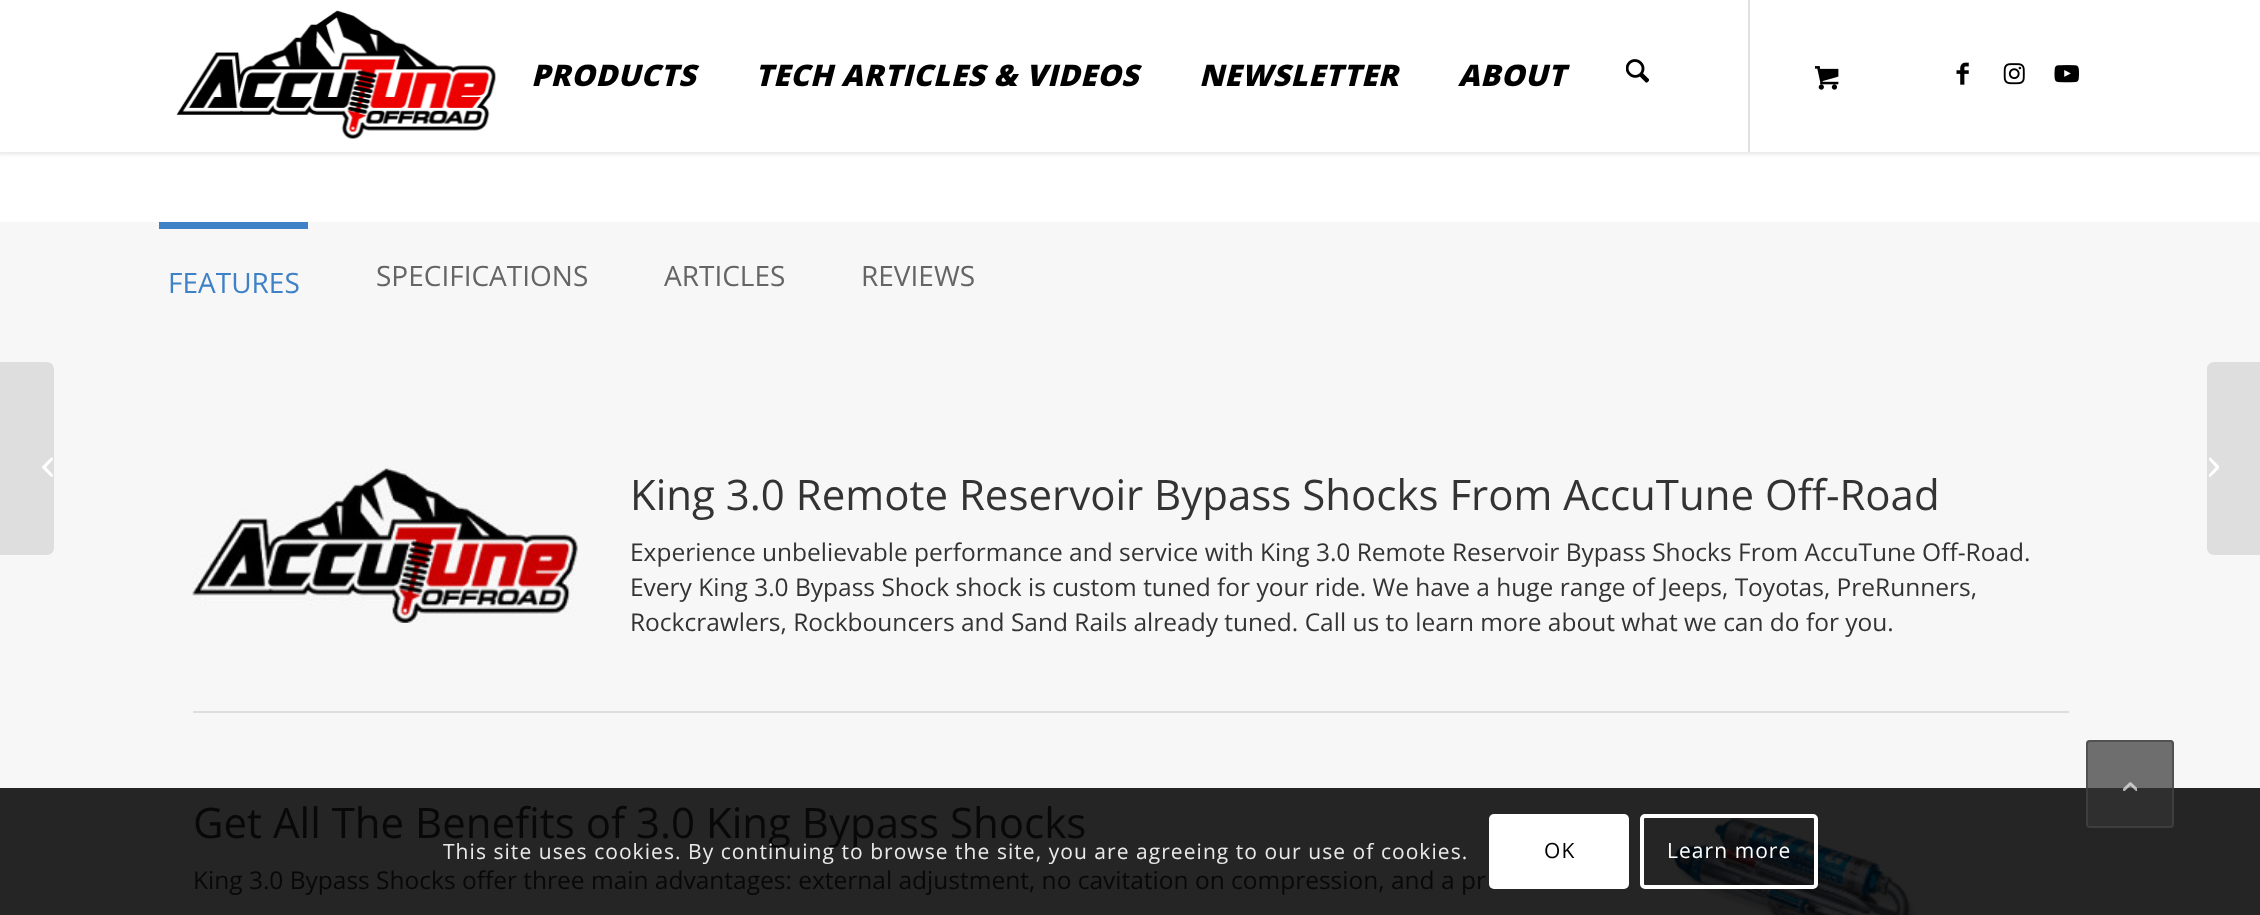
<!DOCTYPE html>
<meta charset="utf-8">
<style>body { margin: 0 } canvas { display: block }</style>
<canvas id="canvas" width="2260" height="915"></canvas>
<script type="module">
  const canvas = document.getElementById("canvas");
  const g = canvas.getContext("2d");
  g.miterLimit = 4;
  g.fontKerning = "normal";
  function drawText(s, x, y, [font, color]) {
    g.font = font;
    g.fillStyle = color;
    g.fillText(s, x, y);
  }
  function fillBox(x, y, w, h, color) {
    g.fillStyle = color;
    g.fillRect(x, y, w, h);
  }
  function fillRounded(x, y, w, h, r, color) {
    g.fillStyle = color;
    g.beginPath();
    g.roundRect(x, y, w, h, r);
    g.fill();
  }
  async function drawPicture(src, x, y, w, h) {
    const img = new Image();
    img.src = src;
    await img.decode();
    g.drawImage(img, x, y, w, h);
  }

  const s1 = ["italic 800 29.75px Open Sans", "#000000"];
  const s2 = ["28px Open Sans", "#3E81C6"];
  const s3 = ["28px Open Sans", "#656565"];
  const s4 = ["42px Open Sans", "#333333"];
  const s5 = ["24.5px Open Sans", "#333333"];
  const s6 = ["42px Open Sans", "#080808"];
  const s7 = ["24.5px Open Sans", "#080808"];
  const s8 = ["21px Open Sans", "#E9E9E9"];
  const s9 = ["21px Open Sans", "#000000"];
  const s10 = ["21px Open Sans", "#FFFFFF"];

  fillBox(0, 0, 2260, 915, "#FFFFFF");
  g.fillStyle = "rgba(0, 0, 0, 0.1)";
  g.filter = "blur(2px)";
  g.beginPath();
  g.rect(-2, -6, 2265, 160);
  g.fill();
  g.filter = "none";
  fillBox(0, 0, 2260, 152, "#FFFFFF");
  await drawPicture("pic1.png", 176, 10, 320, 129);
  fillBox(1748, 0, 2, 152, "#E1E1E1");
  g.letterSpacing = "0.5px";
  drawText("PRODUCTS", 531, 86, s1);
  drawText("TECH ARTICLES & VIDEOS", 755, 86, s1);
  drawText("NEWSLETTER", 1199, 86, s1);
  drawText("ABOUT", 1458, 86, s1);
  await drawPicture("pic2.png", 1626, 59, 23, 24);
  await drawPicture("pic3.png", 1815, 66, 24, 24);
  await drawPicture("pic4.png", 1956, 62, 13, 23);
  await drawPicture("pic5.png", 2003, 63, 22, 22);
  await drawPicture("pic6.png", 2054, 65, 25, 18);
  fillBox(0, 222, 2260, 566, "#F8F7F7");
  g.fillStyle = "#DFDEDE";
  g.beginPath();
  g.roundRect(0, 362, 54, 193, [0, 7, 7, 0]);
  g.fill();
  await drawPicture("pic7.png", 42, 457, 11, 20);
  fillBox(0, 788, 2260, 127, "#252525");
  fillBox(159, 222, 149, 7, "#3E81C6");
  g.letterSpacing = "0px";
  drawText("FEATURES", 168, 293, s2);
  drawText("SPECIFICATIONS", 376, 286, s3);
  drawText("ARTICLES", 664, 286, s3);
  drawText("REVIEWS", 861, 286, s3);
  fillBox(193, 711, 1876, 2, "#DDDDDD");
  await drawPicture("pic8.png", 192, 468, 386, 155);
  drawText("King 3.0 Remote Reservoir Bypass Shocks From AccuTune Off-Road", 630, 510, s4);
  drawText("Experience unbelievable performance and service with King 3.0 Remote Reservoir Bypass Shocks From AccuTune Off-Road.", 630, 561, s5);
  drawText("Every King 3.0 Bypass Shock shock is custom tuned for your ride. We have a huge range of Jeeps, Toyotas, PreRunners,", 630, 596, s5);
  drawText("Rockcrawlers, Rockbouncers and Sand Rails already tuned. Call us to learn more about what we can do for you.", 630, 631, s5);
  drawText("Get All The Benefits of 3.0 King Bypass Shocks", 193, 838, s6);
  drawText("King 3.0 Bypass Shocks offer three main advantages: external adjustment, no cavitation on compression, and a pr", 193, 889, s7);
  await drawPicture("pic9.png", 1666, 808, 252, 107);
  g.fillStyle = "#DFDEDE";
  g.beginPath();
  g.moveTo(2214, 362);
  g.lineTo(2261, 362);
  g.lineTo(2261, 555);
  g.lineTo(2214, 555);
  g.bezierCurveTo(2210, 555, 2207, 552, 2207, 548);
  g.lineTo(2207, 369);
  g.bezierCurveTo(2207, 365, 2210, 362, 2214, 362);
  g.closePath();
  g.fill();
  await drawPicture("pic10.png", 2209, 457, 10, 20);
  fillRounded(2086, 740, 88, 88, 4, "rgba(51, 51, 51, 0.7)");
  g.beginPath();
  g.roundRect(2087, 741, 86, 86, 3);
  g.strokeStyle = "rgba(68, 68, 68, 0.7)";
  g.lineWidth = 2;
  g.stroke();
  await drawPicture("pic11.png", 2123, 782, 14, 10);
  g.letterSpacing = "1.05px";
  drawText("This site uses cookies. By continuing to browse the site, you are agreeing to our use of cookies.", 443, 859, s8);
  fillRounded(1489, 814, 140, 75, 5, "#FFFFFF");
  drawText("OK", 1544, 858, s9);
  g.beginPath();
  g.roundRect(1642, 816, 174, 71, 3);
  g.strokeStyle = "#FFFFFF";
  g.lineWidth = 4;
  g.stroke();
  drawText("Learn more", 1667, 858, s10);
</script>
